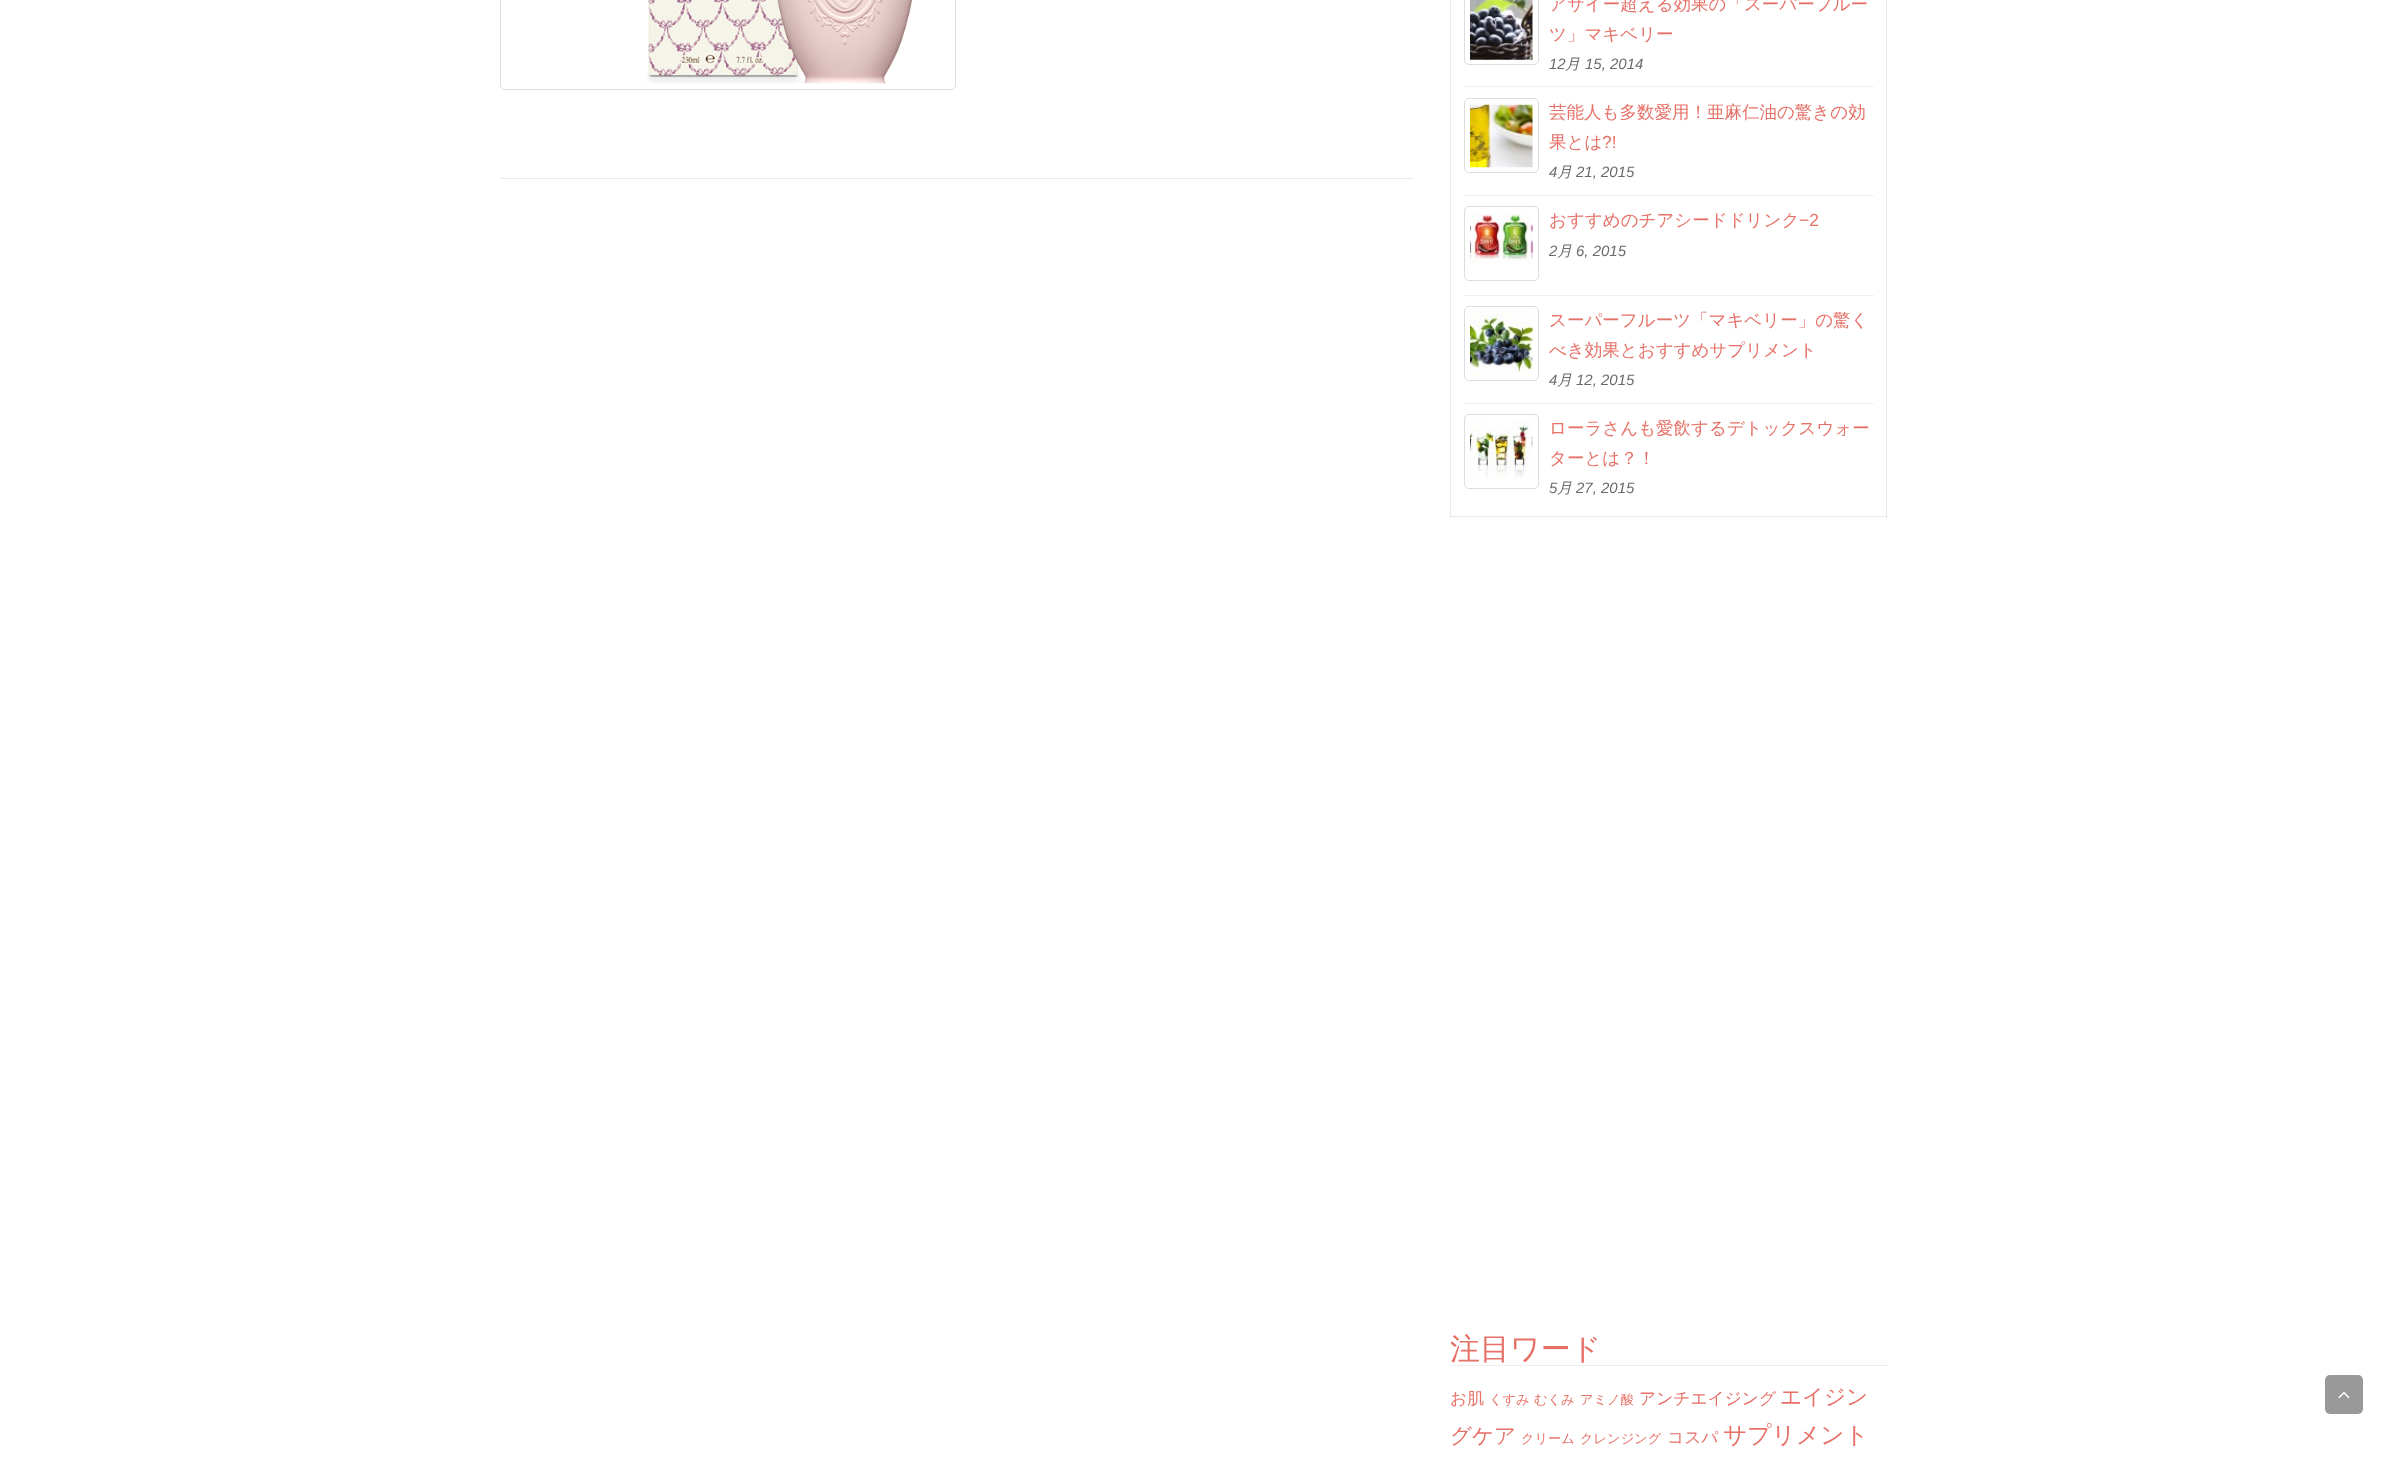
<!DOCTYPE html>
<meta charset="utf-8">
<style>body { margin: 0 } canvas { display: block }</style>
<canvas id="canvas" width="2387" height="1472"></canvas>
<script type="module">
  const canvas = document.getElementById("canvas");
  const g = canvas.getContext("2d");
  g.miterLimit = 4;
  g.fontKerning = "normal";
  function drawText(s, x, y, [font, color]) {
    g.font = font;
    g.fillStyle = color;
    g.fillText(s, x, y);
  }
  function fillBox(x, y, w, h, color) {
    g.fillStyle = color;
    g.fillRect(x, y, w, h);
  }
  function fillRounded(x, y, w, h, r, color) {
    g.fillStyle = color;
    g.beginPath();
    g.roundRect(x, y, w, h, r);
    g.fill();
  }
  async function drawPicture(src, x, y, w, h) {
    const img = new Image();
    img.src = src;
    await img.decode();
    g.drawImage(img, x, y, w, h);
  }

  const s1 = ["500 17.5px WenQuanYi Zen Hei", "#E67168"];
  const s2 = ["italic 15px Liberation Sans", "#6B6B6B"];
  const s3 = ["italic 500 15px WenQuanYi Zen Hei", "#6B6B6B"];
  const s4 = ["17.5px Liberation Sans", "#E67168"];
  const s5 = ["500 30px WenQuanYi Zen Hei", "#E67168"];
  const s6 = ["500 16.75px WenQuanYi Zen Hei", "#E67168"];
  const s7 = ["500 13.25px WenQuanYi Zen Hei", "#E67168"];
  const s8 = ["500 21.5px WenQuanYi Zen Hei", "#E67168"];
  const s9 = ["500 23.75px WenQuanYi Zen Hei", "#E67168"];

  fillBox(0, 0, 2387, 1472, "#FFFFFF");
  g.beginPath();
  g.roundRect(500.5, -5.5, 455, 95, 4.5);
  g.strokeStyle = "#DDDDDD";
  g.stroke();
  await drawPicture("pic1.png", 646, 0, 266, 84);
  fillBox(500, 178, 913, 1, "#E8E8E8");
  fillBox(1886, 0, 1, 518, "#E8E8E8");
  fillBox(1450, 516, 438, 1, "#E8E8E8");
  fillBox(1450, 0, 1, 518, "#E8E8E8");
  fillBox(1464, 86, 410, 1, "#F0F0F0");
  g.beginPath();
  g.roundRect(1464.5, -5.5, 74, 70, 4.5);
  g.stroke();
  await drawPicture("pic2.png", 1470, 0, 63, 60);
  drawText("アサイー超える効果の「スーパーフルー", 1549, 10, s1);
  drawText("ツ」マキベリー", 1549, 40, s1);
  drawText("12", 1549, 69, s2);
  drawText("月", 1565, 69, s3);
  drawText("15, 2014", 1585, 69, s2);
  fillBox(1464, 195, 410, 1, "#F0F0F0");
  g.beginPath();
  g.roundRect(1464.5, 98.5, 74, 74, 4.5);
  g.stroke();
  await drawPicture("pic3.png", 1470, 104, 63, 64);
  drawText("芸能人も多数愛用！亜麻仁油の驚きの効", 1549, 118, s1);
  drawText("果とは", 1549, 148, s1);
  drawText("?!", 1602, 148, s4);
  drawText("4", 1549, 177, s2);
  drawText("月", 1557, 177, s3);
  drawText("21, 2015", 1576, 177, s2);
  fillBox(1464, 295, 410, 1, "#F0F0F0");
  g.beginPath();
  g.roundRect(1464.5, 206.5, 74, 74, 4.5);
  g.stroke();
  await drawPicture("pic4.png", 1470, 213, 63, 51);
  drawText("おすすめのチアシードドリンク", 1549, 226, s1);
  drawText("−2", 1799, 226, s4);
  drawText("2", 1549, 256, s2);
  drawText("月", 1557, 256, s3);
  drawText("6, 2015", 1576, 256, s2);
  fillBox(1464, 403, 410, 1, "#F0F0F0");
  g.beginPath();
  g.roundRect(1464.5, 306.5, 74, 74, 4.5);
  g.stroke();
  await drawPicture("pic5.png", 1470, 313, 63, 63);
  drawText("スーパーフルーツ「マキベリー」の驚く", 1549, 326, s1);
  drawText("べき効果とおすすめサプリメント", 1549, 356, s1);
  drawText("4", 1549, 385, s2);
  drawText("月", 1557, 385, s3);
  drawText("12, 2015", 1576, 385, s2);
  g.beginPath();
  g.roundRect(1464.5, 414.5, 74, 74, 4.5);
  g.stroke();
  await drawPicture("pic6.png", 1470, 421, 63, 58);
  drawText("ローラさんも愛飲するデトックスウォー", 1549, 434, s1);
  drawText("ターとは？！", 1549, 464, s1);
  drawText("5", 1549, 493, s2);
  drawText("月", 1557, 493, s3);
  drawText("27, 2015", 1576, 493, s2);
  fillBox(1450, 1365, 438, 1, "#EEEEEE");
  drawText("注目ワード", 1450, 1359, s5);
  drawText("お肌", 1450, 1404, s6);
  drawText("くすみ", 1489, 1404, s7);
  drawText("むくみ", 1534, 1404, s7);
  drawText("アミノ酸", 1580, 1404, s7);
  drawText("アンチエイジング", 1639, 1404, s6);
  drawText("エイジン", 1780, 1404, s8);
  drawText("グケア", 1450, 1443, s8);
  drawText("クリーム", 1521, 1443, s7);
  drawText("クレンジング", 1580, 1443, s7);
  drawText("コスパ", 1667, 1443, s6);
  drawText("サプリメント", 1723, 1443, s9);
  fillRounded(2325, 1375, 38, 39, 5, "#999999");
  await drawPicture("pic7.png", 2338, 1391, 12, 8);
</script>
